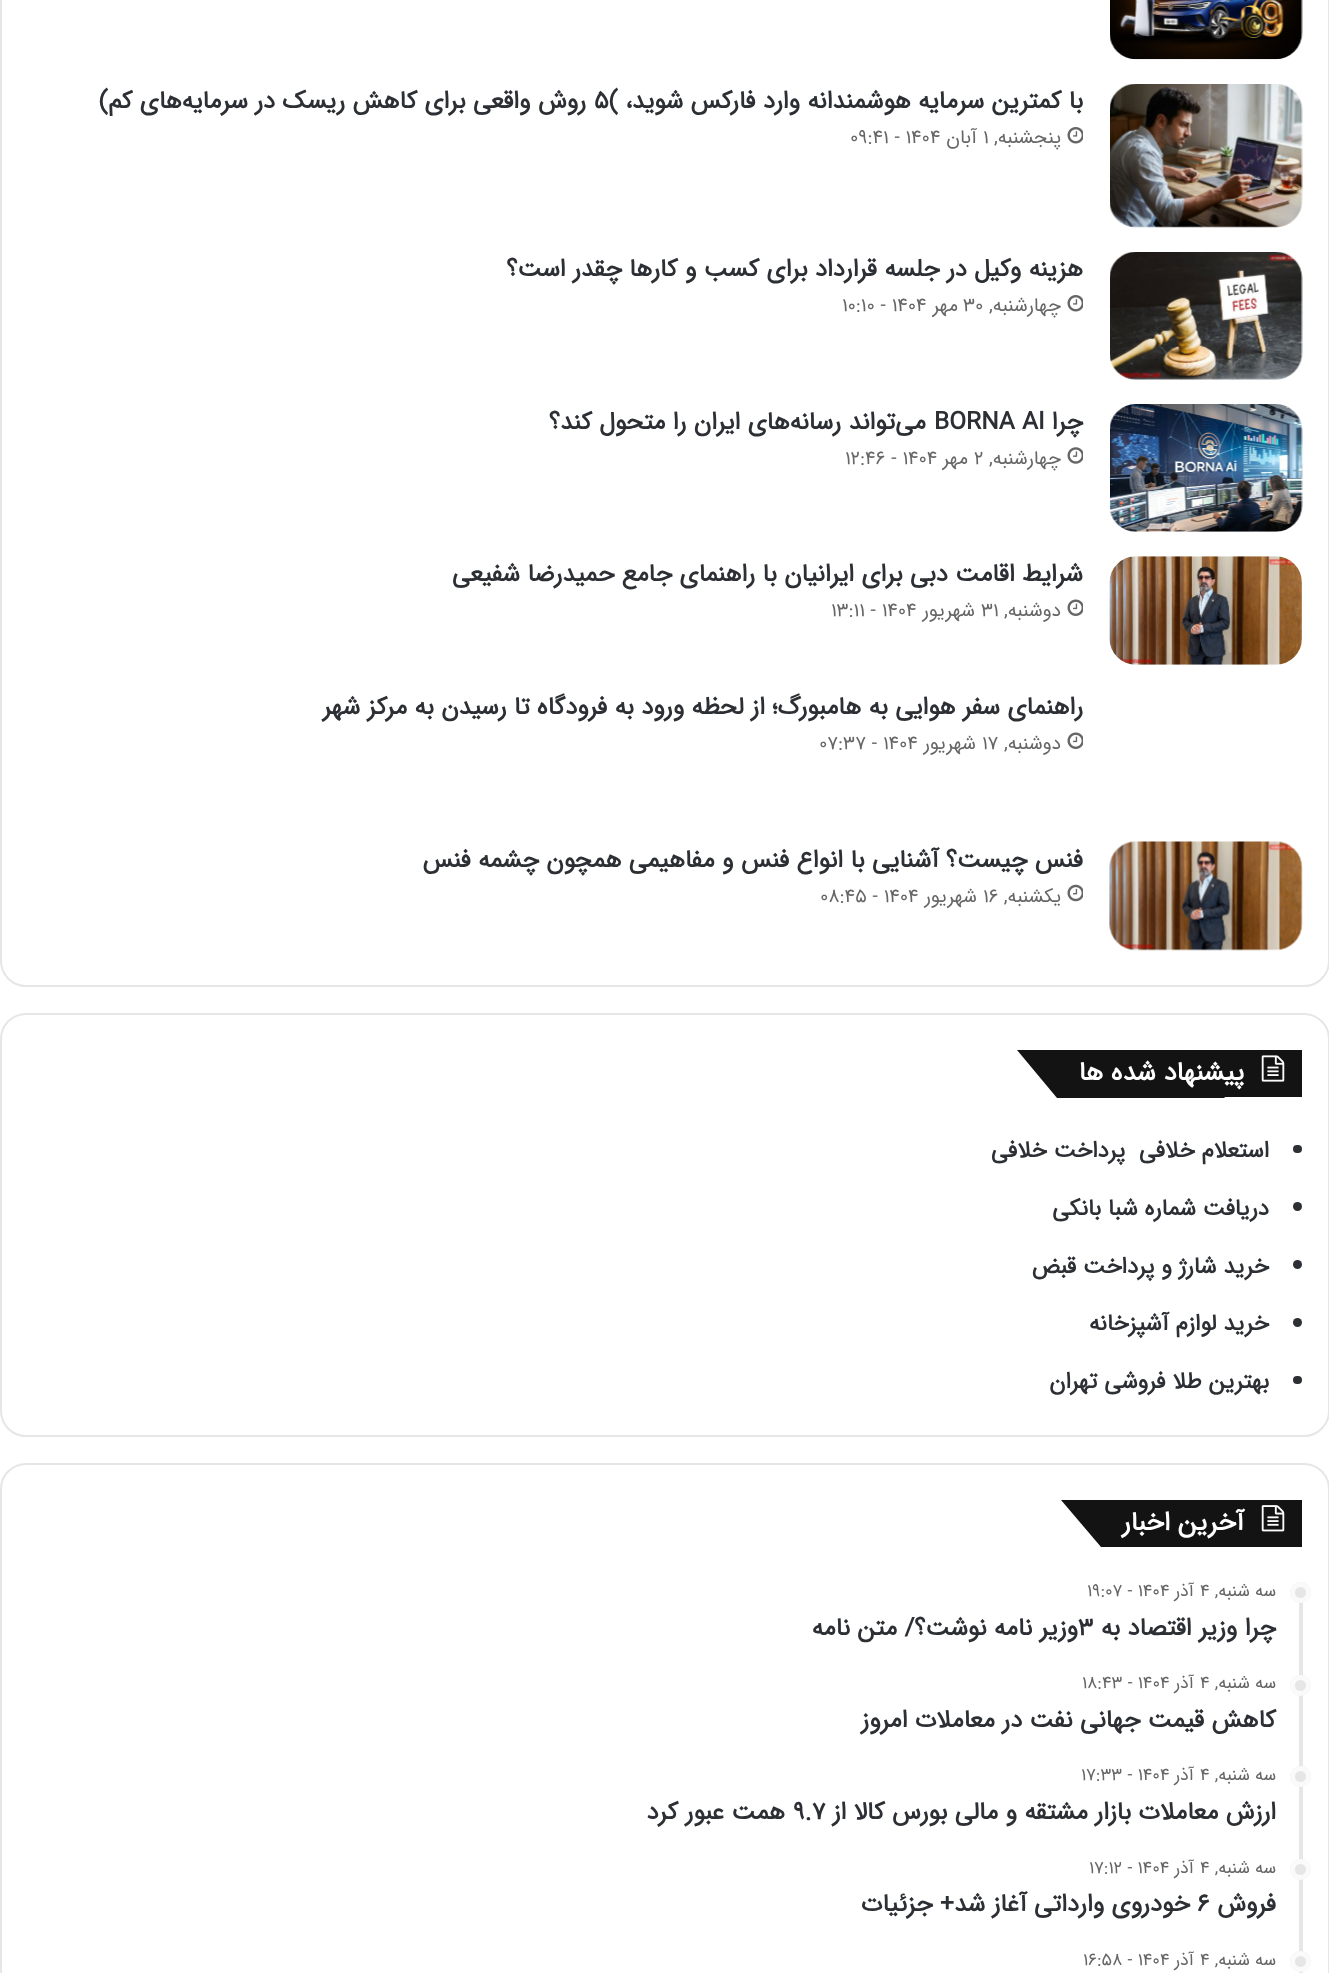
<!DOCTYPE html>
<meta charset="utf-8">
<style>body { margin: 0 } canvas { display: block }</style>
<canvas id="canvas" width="1329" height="1973"></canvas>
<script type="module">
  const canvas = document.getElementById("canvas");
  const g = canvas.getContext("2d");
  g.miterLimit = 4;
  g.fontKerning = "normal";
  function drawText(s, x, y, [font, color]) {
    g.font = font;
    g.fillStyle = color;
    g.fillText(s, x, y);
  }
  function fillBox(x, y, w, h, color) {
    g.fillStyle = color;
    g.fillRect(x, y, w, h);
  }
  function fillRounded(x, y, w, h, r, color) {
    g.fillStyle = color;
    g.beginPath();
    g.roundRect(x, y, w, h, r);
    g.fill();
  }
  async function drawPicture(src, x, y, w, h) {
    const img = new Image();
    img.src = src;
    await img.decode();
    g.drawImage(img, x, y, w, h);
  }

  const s1 = ["bold 24.5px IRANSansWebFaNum", "#2C2F34"];
  const s2 = ["19.25px IRANSansWebFaNum", "#666666"];
  const s3 = ["bold 26.25px IRANSansWebFaNum", "#FFFFFF"];
  const s4 = ["bold 22.75px IRANSansWebFaNum", "#2C2F34"];
  const s5 = ["17.5px IRANSansWebFaNum", "#666666"];

  fillBox(0, 0, 1329, 1973, "#FFFFFF");
  g.beginPath();
  g.roundRect(1, -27, 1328, 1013, 25);
  g.strokeStyle = "#E6E6E6";
  g.lineWidth = 2;
  g.stroke();
  await drawPicture("pic1.png", 1110, 0, 193, 60);
  await drawPicture("pic2.png", 1110, 84, 193, 144);
  g.direction = "rtl";
  drawText("با کمترین سرمایه هوشمندانه وارد فارکس شوید،", 1083, 108, s1);
  g.direction = "ltr";
  drawText("۵(", 594, 108, s1);
  g.direction = "rtl";
  drawText("روش واقعی برای کاهش ریسک در سرمایه‌های کم)", 586, 108, s1);
  await drawPicture("pic3.png", 1067, 127, 16, 17);
  drawText("پنجشنبه,", 1061, 143, s2);
  g.direction = "ltr";
  drawText("۱", 983, 143, s2);
  g.direction = "rtl";
  drawText("آبان", 977, 143, s2);
  g.direction = "ltr";
  drawText("۰۹:۴۱ - ۱۴۰۴", 850, 143, s2);
  await drawPicture("pic4.png", 1110, 252, 193, 128);
  g.direction = "rtl";
  drawText("هزینه وکیل در جلسه قرارداد برای کسب و کارها چقدر است؟", 1083, 276, s1);
  await drawPicture("pic3.png", 1067, 295, 16, 17);
  drawText("چهارشنبه,", 1061, 311, s2);
  g.direction = "ltr";
  drawText("۳۰", 963, 311, s2);
  g.direction = "rtl";
  drawText("مهر", 958, 311, s2);
  g.direction = "ltr";
  drawText("۱۰:۱۰ - ۱۴۰۴", 842, 311, s2);
  await drawPicture("pic5.png", 1110, 404, 193, 128);
  g.direction = "rtl";
  drawText("چرا", 1083, 429, s1);
  g.direction = "ltr";
  drawText("BORNA AI", 934, 429, s1);
  g.direction = "rtl";
  drawText("می‌تواند رسانه‌های ایران را متحول کند؟", 926, 429, s1);
  await drawPicture("pic6.png", 1067, 447, 16, 17);
  drawText("چهارشنبه,", 1061, 464, s2);
  g.direction = "ltr";
  drawText("۲", 974, 464, s2);
  g.direction = "rtl";
  drawText("مهر", 968, 464, s2);
  g.direction = "ltr";
  drawText("۱۲:۴۶ - ۱۴۰۴", 845, 464, s2);
  await drawPicture("pic7.png", 1109, 556, 193, 109);
  g.direction = "rtl";
  drawText("شرایط اقامت دبی برای ایرانیان با راهنمای جامع حمیدرضا شفیعی", 1083, 581, s1);
  await drawPicture("pic8.png", 1067, 599, 16, 17);
  drawText("دوشنبه,", 1061, 616, s2);
  g.direction = "ltr";
  drawText("۳۱", 981, 616, s2);
  g.direction = "rtl";
  drawText("شهریور", 975, 616, s2);
  g.direction = "ltr";
  drawText("۱۳:۱۱ - ۱۴۰۴", 831, 616, s2);
  g.direction = "rtl";
  drawText("راهنمای سفر هوایی به هامبورگ؛ از لحظه ورود به فرودگاه تا رسیدن به مرکز شهر", 1083, 714, s1);
  await drawPicture("pic8.png", 1067, 732, 16, 17);
  drawText("دوشنبه,", 1061, 749, s2);
  g.direction = "ltr";
  drawText("۱۷", 982, 749, s2);
  g.direction = "rtl";
  drawText("شهریور", 976, 749, s2);
  g.direction = "ltr";
  drawText("۰۷:۳۷ - ۱۴۰۴", 819, 749, s2);
  await drawPicture("pic9.png", 1109, 841, 194, 110);
  g.direction = "rtl";
  drawText("فنس چیست؟ آشنایی با انواع فنس و مفاهیمی همچون چشمه فنس", 1083, 867, s1);
  await drawPicture("pic10.png", 1067, 884, 16, 18);
  drawText("یکشنبه,", 1061, 902, s2);
  g.direction = "ltr";
  drawText("۱۶", 983, 902, s2);
  g.direction = "rtl";
  drawText("شهریور", 977, 902, s2);
  g.direction = "ltr";
  drawText("۰۸:۴۵ - ۱۴۰۴", 820, 902, s2);
  g.beginPath();
  g.roundRect(1, 1014, 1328, 422, 25);
  g.stroke();
  fillBox(1186, 1050, 116, 47, "#131313");
  g.beginPath();
  g.moveTo(1017, 1050);
  g.lineTo(1186, 1050);
  g.lineTo(1225, 1098);
  g.lineTo(1057, 1098);
  g.closePath();
  g.fill();
  await drawPicture("pic11.png", 1261, 1055, 24, 27);
  g.direction = "rtl";
  drawText("پیشنهاد شده ها", 1244, 1080, s3);
  fillRounded(1293, 1145, 9, 8, 4, "#2C2F34");
  drawText("استعلام خلافی  پرداخت خلافی", 1269, 1157, s4);
  g.beginPath();
  g.arc(1297.5, 1206.5, 4.5, 0, Math.PI * 2);
  g.fill();
  drawText("دریافت شماره شبا بانکی", 1269, 1215, s4);
  g.beginPath();
  g.arc(1297.5, 1264.5, 4.5, 0, Math.PI * 2);
  g.fill();
  drawText("خرید شارژ", 1269, 1273, s4);
  drawText("و پرداخت قبض", 1172, 1273, s4);
  g.beginPath();
  g.arc(1297.5, 1322.5, 4.5, 0, Math.PI * 2);
  g.fill();
  drawText("خرید لوازم آشپزخانه", 1269, 1330, s4);
  fillRounded(1293, 1376, 9, 8, 4, "#2C2F34");
  drawText("بهترین طلا فروشی تهران", 1269, 1388, s4);
  g.beginPath();
  g.roundRect(1, 1464, 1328, 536, 25);
  g.stroke();
  fillBox(1199, 1500, 103, 47, "#131313");
  g.beginPath();
  g.moveTo(1061, 1500);
  g.lineTo(1199, 1500);
  g.lineTo(1238, 1547);
  g.lineTo(1101, 1547);
  g.closePath();
  g.fill();
  await drawPicture("pic12.png", 1261, 1505, 24, 27);
  drawText("آخرین اخبار", 1244, 1530, s3);
  fillBox(1299, 1582, 4, 391, "#E6E6E6");
  g.beginPath();
  g.arc(1300.5, 1592.5, 10.5, 0, Math.PI * 2);
  g.fill();
  g.beginPath();
  g.arc(1300.5, 1592.5, 8, 0, Math.PI * 2);
  g.strokeStyle = "rgba(255, 255, 255, 0.8)";
  g.lineWidth = 5;
  g.stroke();
  drawText("سه شنبه,", 1276, 1596, s5);
  g.direction = "ltr";
  drawText("۴", 1200, 1596, s5);
  g.direction = "rtl";
  drawText("آذر", 1194, 1596, s5);
  g.direction = "ltr";
  drawText("۱۹:۰۷ - ۱۴۰۴", 1087, 1596, s5);
  g.direction = "rtl";
  drawText("چرا وزیر اقتصاد به", 1276, 1635, s1);
  g.direction = "ltr";
  drawText("۳", 1078, 1635, s1);
  g.direction = "rtl";
  drawText("وزیر نامه نوشت؟/ متن نامه", 1078, 1635, s1);
  g.fillStyle = "#E6E6E6";
  g.beginPath();
  g.arc(1300.5, 1685.5, 10.5, 0, Math.PI * 2);
  g.fill();
  g.beginPath();
  g.arc(1300.5, 1685.5, 8, 0, Math.PI * 2);
  g.stroke();
  drawText("سه شنبه,", 1276, 1688, s5);
  g.direction = "ltr";
  drawText("۴", 1200, 1688, s5);
  g.direction = "rtl";
  drawText("آذر", 1194, 1688, s5);
  g.direction = "ltr";
  drawText("۱۸:۴۳ - ۱۴۰۴", 1082, 1688, s5);
  g.direction = "rtl";
  drawText("کاهش قیمت جهانی نفت در معاملات امروز", 1276, 1727, s1);
  g.fillStyle = "#E6E6E6";
  g.beginPath();
  g.arc(1300.5, 1776.5, 10.5, 0, Math.PI * 2);
  g.fill();
  g.beginPath();
  g.arc(1300.5, 1776.5, 8, 0, Math.PI * 2);
  g.stroke();
  drawText("سه شنبه,", 1276, 1780, s5);
  g.direction = "ltr";
  drawText("۴", 1200, 1780, s5);
  g.direction = "rtl";
  drawText("آذر", 1194, 1780, s5);
  g.direction = "ltr";
  drawText("۱۷:۳۳ - ۱۴۰۴", 1081, 1780, s5);
  g.direction = "rtl";
  drawText("ارزش معاملات بازار مشتقه و مالی بورس کالا از", 1276, 1819, s1);
  g.direction = "ltr";
  drawText("۹.۷", 793, 1819, s1);
  g.direction = "rtl";
  drawText("همت عبور کرد", 785, 1819, s1);
  g.fillStyle = "#E6E6E6";
  g.beginPath();
  g.arc(1300.5, 1869.5, 10.5, 0, Math.PI * 2);
  g.fill();
  g.beginPath();
  g.arc(1300.5, 1869.5, 8, 0, Math.PI * 2);
  g.stroke();
  drawText("سه شنبه,", 1276, 1873, s5);
  g.direction = "ltr";
  drawText("۴", 1200, 1873, s5);
  g.direction = "rtl";
  drawText("آذر", 1194, 1873, s5);
  g.direction = "ltr";
  drawText("۱۷:۱۲ - ۱۴۰۴", 1089, 1873, s5);
  g.direction = "rtl";
  drawText("فروش", 1276, 1911, s1);
  g.direction = "ltr";
  drawText("۶", 1197, 1911, s1);
  g.direction = "rtl";
  drawText("خودروی وارداتی آغاز شد+ جزئیات", 1190, 1911, s1);
  g.fillStyle = "#E6E6E6";
  g.beginPath();
  g.arc(1300.5, 1961.5, 10.5, 0, Math.PI * 2);
  g.fill();
  g.beginPath();
  g.arc(1300.5, 1961.5, 8, 0, Math.PI * 2);
  g.stroke();
  drawText("سه شنبه,", 1276, 1965, s5);
  g.direction = "ltr";
  drawText("۴", 1200, 1965, s5);
  g.direction = "rtl";
  drawText("آذر", 1194, 1965, s5);
  g.direction = "ltr";
  drawText("۱۶:۵۸ - ۱۴۰۴", 1083, 1965, s5);
</script>
